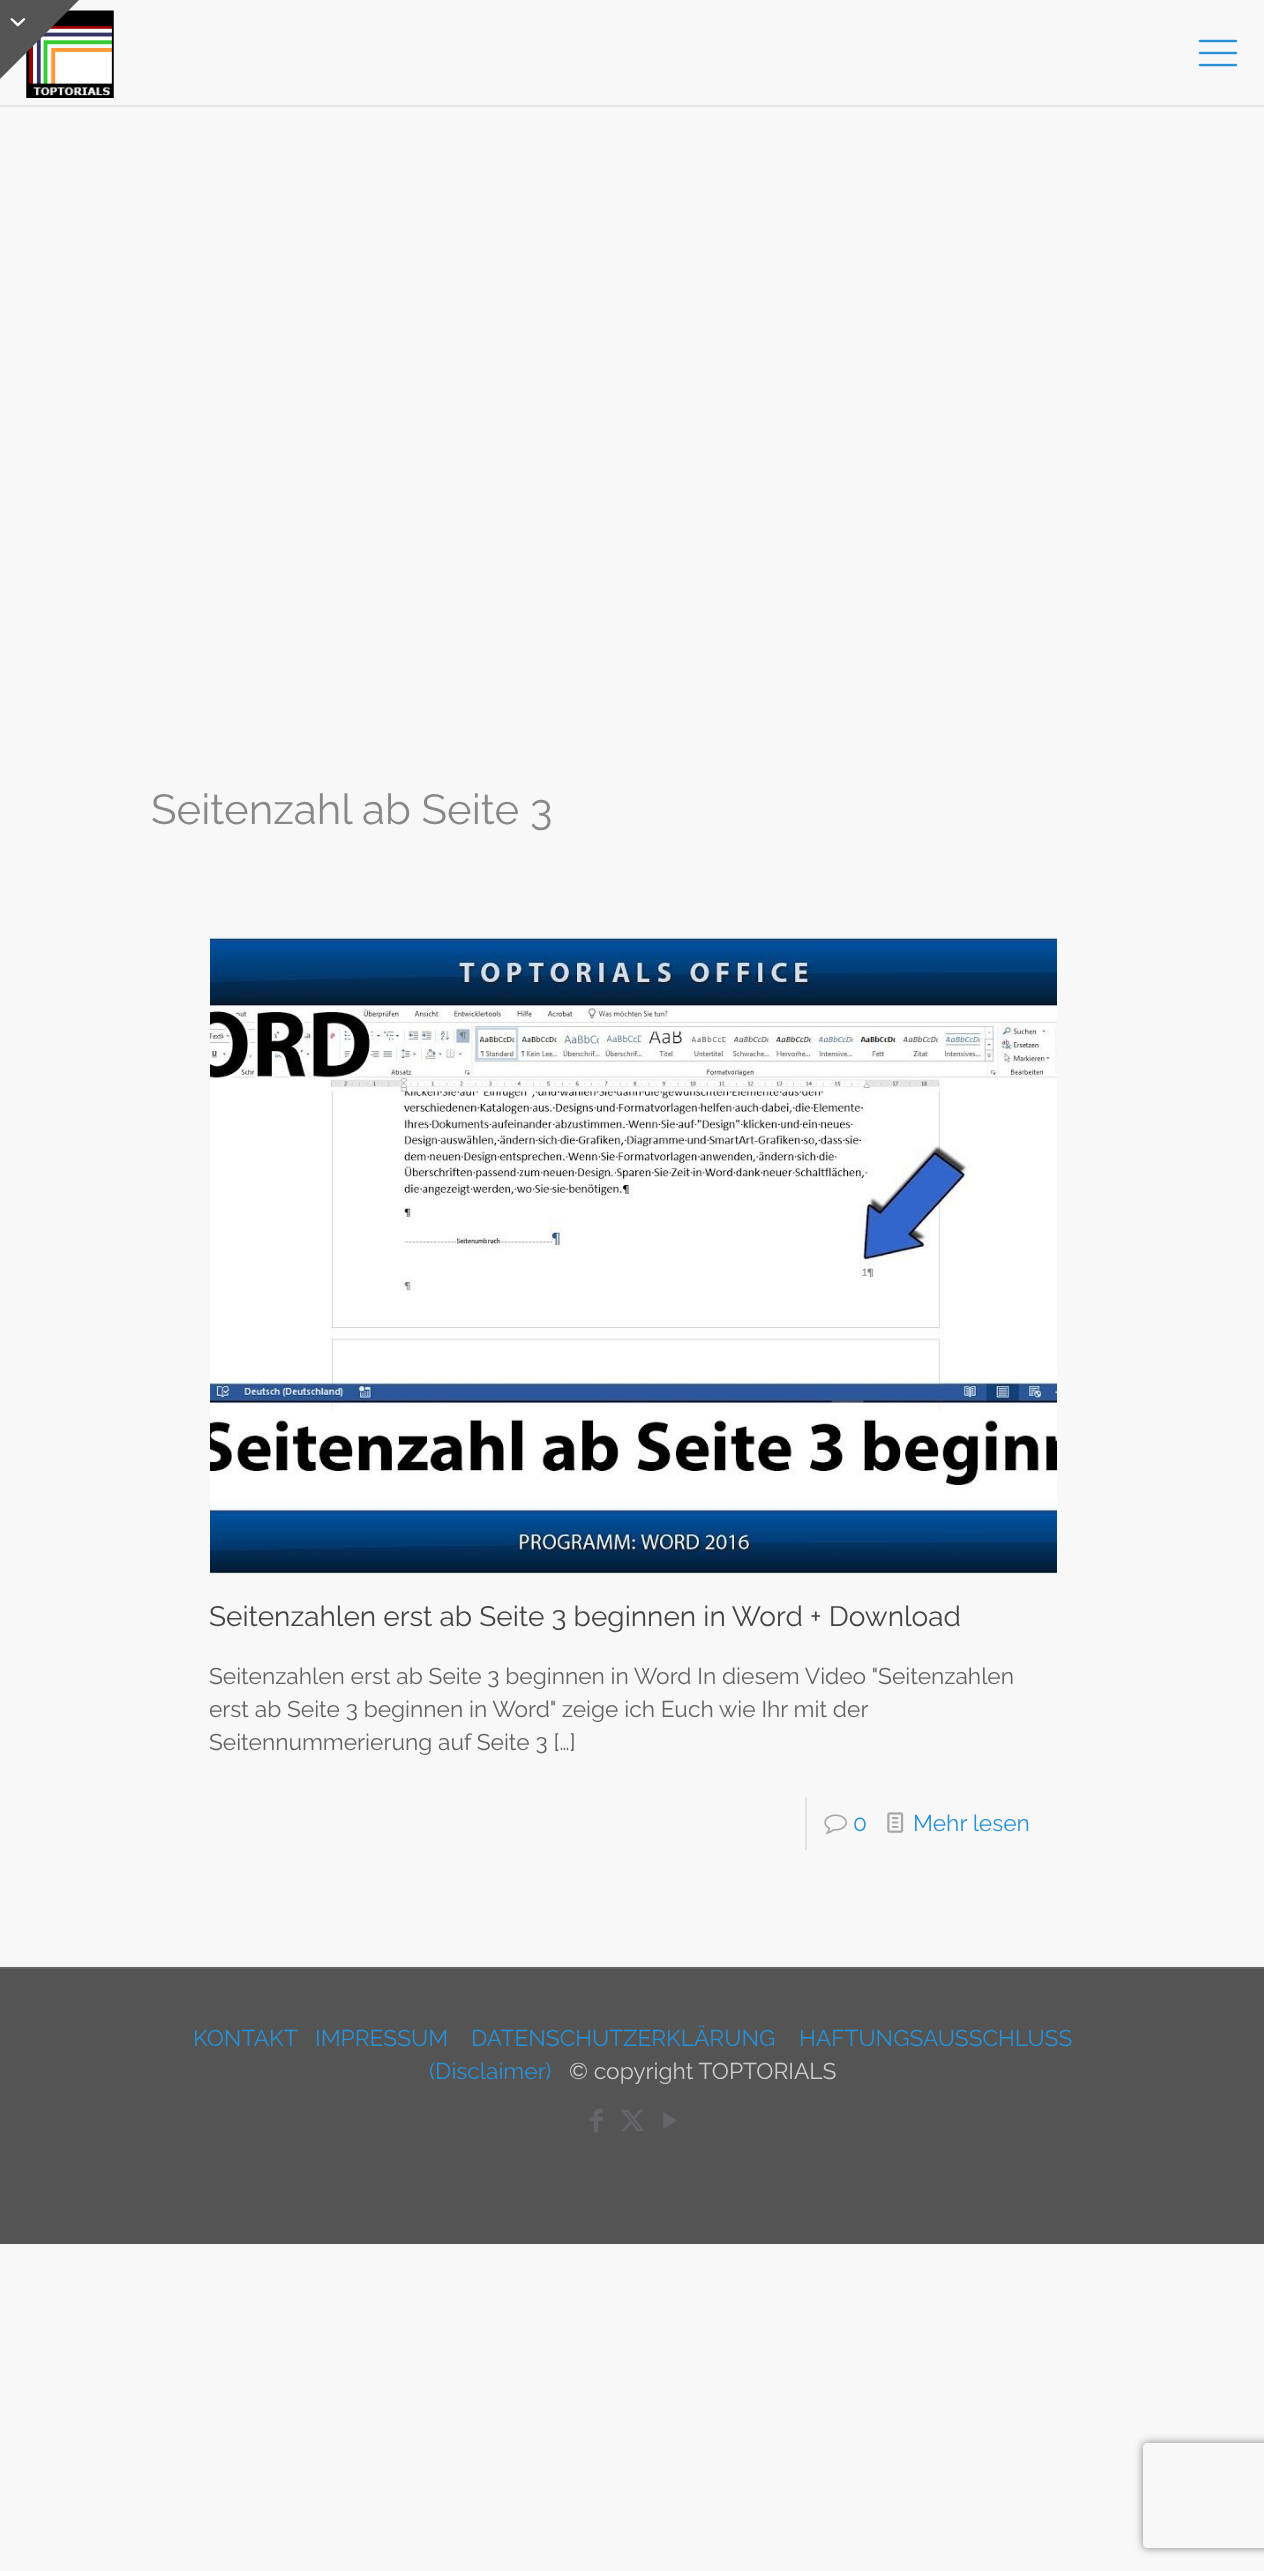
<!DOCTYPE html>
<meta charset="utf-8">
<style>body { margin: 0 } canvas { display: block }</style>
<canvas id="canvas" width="1264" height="2571"></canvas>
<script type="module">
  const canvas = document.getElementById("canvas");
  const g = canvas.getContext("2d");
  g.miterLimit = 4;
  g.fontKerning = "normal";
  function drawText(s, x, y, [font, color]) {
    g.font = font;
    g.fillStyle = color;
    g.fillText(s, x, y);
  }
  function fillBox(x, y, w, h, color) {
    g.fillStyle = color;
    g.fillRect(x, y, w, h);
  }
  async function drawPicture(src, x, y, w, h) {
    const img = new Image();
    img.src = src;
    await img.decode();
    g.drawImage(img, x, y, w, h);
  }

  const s1 = ["42px Raleway", "#888888"];
  const s2 = ["28px Raleway", "#444444"];
  const s3 = ["22.75px Raleway", "#626262"];
  const s4 = ["22.75px Raleway", "#2991D6"];
  const s5 = ["22.75px Raleway", "#CCCCCC"];

  fillBox(0, 0, 1264, 2571, "#F8F8F8");
  await drawPicture("pic2.png", 26, 10, 88, 88);
  g.fillStyle = "#545454";
  g.beginPath();
  g.moveTo(0, 0);
  g.lineTo(79, 0);
  g.lineTo(0, 79);
  g.closePath();
  g.fill();
  await drawPicture("pic1.png", 10, 18, 16, 9);
  fillBox(0, 105, 1264, 2, "#E7E7E7");
  await drawPicture("pic3.png", 1198, 39, 40, 28);
  drawText("Seitenzahl ab Seite 3", 151, 824, s1);
  await drawPicture("pic4.png", 210, 938, 847, 636);
  drawText("Seitenzahlen erst ab Seite 3 beginnen in Word + Download", 209, 1626, s2);
  drawText("Seitenzahlen erst ab Seite 3 beginnen in Word In diesem Video \"Seitenzahlen", 209, 1684, s3);
  drawText("erst ab Seite 3 beginnen in Word\" zeige ich Euch wie Ihr mit der", 209, 1717, s3);
  drawText("Seitennummerierung auf Seite 3 […]", 209, 1750, s3);
  fillBox(805, 1797, 2, 53, "#E4E4E4");
  await drawPicture("pic5.png", 824, 1814, 23, 20);
  drawText("0", 853, 1831, s4);
  await drawPicture("pic6.png", 887, 1812, 17, 21);
  drawText("Mehr lesen", 913, 1831, s4);
  fillBox(0, 1969, 1264, 275, "#545454");
  fillBox(0, 1967, 1264, 2, "#656565");
  drawText("KONTAKT", 193, 2046, s4);
  drawText("IMPRESSUM", 315, 2046, s4);
  drawText("DATENSCHUTZERKLÄRUNG", 471, 2046, s4);
  drawText("HAFTUNGSAUSSCHLUSS", 799, 2046, s4);
  drawText("(Disclaimer)", 429, 2079, s4);
  drawText("© copyright TOPTORIALS", 569, 2079, s5);
  await drawPicture("pic7.png", 589, 2108, 14, 25);
  await drawPicture("pic8.png", 621, 2110, 23, 22);
  await drawPicture("pic9.png", 663, 2112, 14, 17);
  g.save();
  g.beginPath();
  g.moveTo(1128, 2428);
  g.lineTo(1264, 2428);
  g.lineTo(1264, 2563);
  g.lineTo(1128, 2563);
  g.closePath();
  g.moveTo(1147, 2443);
  g.lineTo(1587, 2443);
  g.bezierCurveTo(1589, 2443, 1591, 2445, 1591, 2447);
  g.lineTo(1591, 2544);
  g.bezierCurveTo(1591, 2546, 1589, 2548, 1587, 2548);
  g.lineTo(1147, 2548);
  g.bezierCurveTo(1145, 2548, 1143, 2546, 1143, 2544);
  g.lineTo(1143, 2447);
  g.bezierCurveTo(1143, 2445, 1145, 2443, 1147, 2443);
  g.closePath();
  g.clip("evenodd");
  g.fillStyle = "#808080";
  g.filter = "blur(4.5px)";
  g.beginPath();
  g.roundRect(1143, 2443, 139, 105, 4);
  g.fill();
  g.filter = "none";
  g.restore();
</script>
